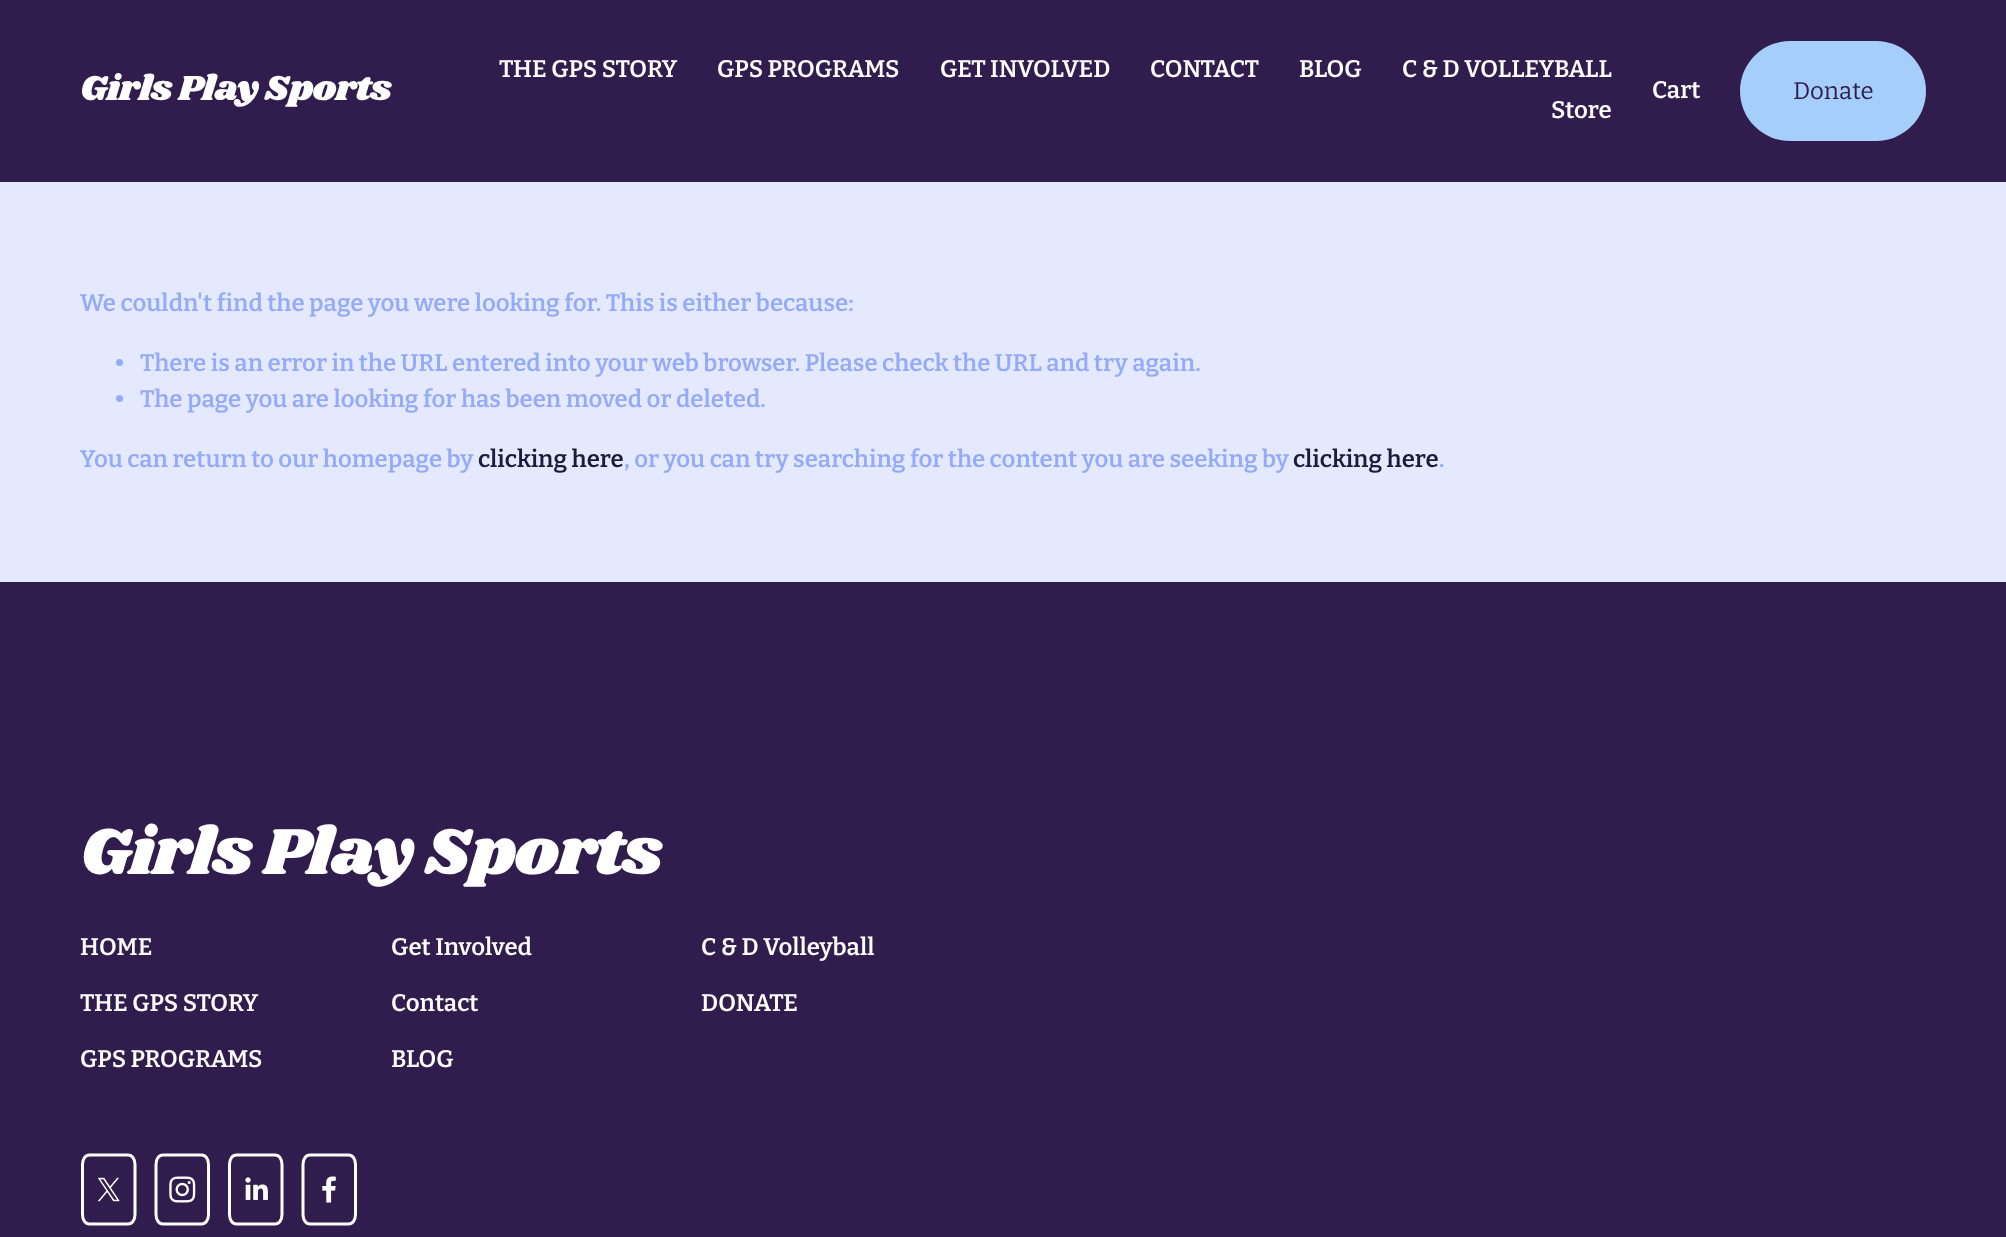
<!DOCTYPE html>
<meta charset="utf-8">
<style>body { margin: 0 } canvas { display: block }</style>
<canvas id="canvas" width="2006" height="1237"></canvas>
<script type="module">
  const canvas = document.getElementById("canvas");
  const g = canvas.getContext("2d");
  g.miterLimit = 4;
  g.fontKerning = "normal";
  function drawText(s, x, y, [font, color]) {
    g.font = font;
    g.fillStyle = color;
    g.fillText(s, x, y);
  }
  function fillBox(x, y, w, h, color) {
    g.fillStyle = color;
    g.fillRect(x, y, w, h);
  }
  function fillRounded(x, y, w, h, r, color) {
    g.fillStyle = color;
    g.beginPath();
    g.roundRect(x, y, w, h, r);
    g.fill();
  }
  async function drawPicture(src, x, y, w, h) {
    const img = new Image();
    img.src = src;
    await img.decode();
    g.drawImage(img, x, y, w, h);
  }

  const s1 = ["36px Shrikhand", "#FFFFFF"];
  const s2 = ["600 24px Bitter", "#FFFFFF"];
  const s3 = ["24px Bitter", "#301D4D"];
  const s4 = ["600 24px Bitter", "#94ABF9"];
  const s5 = ["600 24px Bitter", "#171D3A"];
  const s6 = ["67.25px Shrikhand", "#FFFFFF"];

  fillBox(0, 0, 2006, 1237, "#E5E9FD");
  fillBox(0, 0, 2006, 182, "#301D4D");
  g.letterSpacing = "-0.75px";
  drawText("Girls Play Sports", 80, 100, s1);
  g.letterSpacing = "0px";
  drawText("THE GPS STORY", 499, 77, s2);
  drawText("GPS PROGRAMS", 717, 77, s2);
  drawText("GET INVOLVED", 940, 77, s2);
  drawText("CONTACT", 1150, 77, s2);
  drawText("BLOG", 1299, 77, s2);
  drawText("C & D VOLLEYBALL", 1402, 77, s2);
  drawText("Store", 1551, 118, s2);
  drawText("Cart", 1652, 98, s2);
  fillRounded(1740, 41, 186, 100, 50, "#A5CEFB");
  drawText("Donate", 1793, 99, s3);
  drawText("We couldn't find the page you were looking for. This is either because:", 80, 311, s4);
  g.beginPath();
  g.arc(119.5, 362.5, 3.5, 0, Math.PI * 2);
  g.fill();
  drawText("There is an error in the URL entered into your web browser. Please check the URL and try again.", 140, 371, s4);
  g.beginPath();
  g.arc(119.5, 398.5, 3.5, 0, Math.PI * 2);
  g.fill();
  drawText("The page you are looking for has been moved or deleted.", 140, 407, s4);
  drawText("You can return to our homepage by", 80, 467, s4);
  drawText("clicking here", 478, 467, s5);
  drawText(", or you can try searching for the content you are seeking by", 624, 467, s4);
  drawText("clicking here", 1293, 467, s5);
  drawText(".", 1439, 467, s4);
  fillBox(0, 582, 2006, 655, "#301D4D");
  g.letterSpacing = "-1.4px";
  drawText("Girls Play Sports", 80, 874, s6);
  g.letterSpacing = "0px";
  drawText("HOME", 80, 955, s2);
  drawText("Get Involved", 391, 955, s2);
  drawText("C & D Volleyball", 701, 955, s2);
  drawText("THE GPS STORY", 80, 1011, s2);
  drawText("Contact", 391, 1011, s2);
  drawText("DONATE", 701, 1011, s2);
  drawText("GPS PROGRAMS", 80, 1067, s2);
  drawText("BLOG", 391, 1067, s2);
  g.beginPath();
  g.moveTo(89.5, 1155);
  g.lineTo(128, 1155);
  g.bezierCurveTo(132, 1155, 135, 1159, 135, 1164.5);
  g.lineTo(135, 1214.5);
  g.bezierCurveTo(135, 1220, 132, 1224, 128, 1224);
  g.lineTo(89.5, 1224);
  g.bezierCurveTo(85.5, 1224, 82.5, 1220, 82.5, 1214.5);
  g.lineTo(82.5, 1164.5);
  g.bezierCurveTo(82.5, 1159, 85.5, 1155, 89.5, 1155);
  g.closePath();
  g.strokeStyle = "#FFFFFF";
  g.lineWidth = 3;
  g.stroke();
  await drawPicture("pic1.png", 97, 1177, 23, 25);
  g.beginPath();
  g.moveTo(163, 1155);
  g.lineTo(201.5, 1155);
  g.bezierCurveTo(205.5, 1155, 208.5, 1159, 208.5, 1164.5);
  g.lineTo(208.5, 1214.5);
  g.bezierCurveTo(208.5, 1220, 205.5, 1224, 201.5, 1224);
  g.lineTo(163, 1224);
  g.bezierCurveTo(159, 1224, 156, 1220, 156, 1214.5);
  g.lineTo(156, 1164.5);
  g.bezierCurveTo(156, 1159, 159, 1155, 163, 1155);
  g.closePath();
  g.stroke();
  await drawPicture("pic2.png", 169, 1176, 27, 27);
  g.beginPath();
  g.moveTo(236.5, 1155);
  g.lineTo(275, 1155);
  g.bezierCurveTo(279, 1155, 282, 1159, 282, 1164.5);
  g.lineTo(282, 1214.5);
  g.bezierCurveTo(282, 1220, 279, 1224, 275, 1224);
  g.lineTo(236.5, 1224);
  g.bezierCurveTo(232.5, 1224, 229.5, 1220, 229.5, 1214.5);
  g.lineTo(229.5, 1164.5);
  g.bezierCurveTo(229.5, 1159, 232.5, 1155, 236.5, 1155);
  g.closePath();
  g.stroke();
  await drawPicture("pic3.png", 245, 1177, 23, 23);
  g.beginPath();
  g.moveTo(310, 1155);
  g.lineTo(348.5, 1155);
  g.bezierCurveTo(352.5, 1155, 355.5, 1159, 355.5, 1164.5);
  g.lineTo(355.5, 1214.5);
  g.bezierCurveTo(355.5, 1220, 352.5, 1224, 348.5, 1224);
  g.lineTo(310, 1224);
  g.bezierCurveTo(306, 1224, 303, 1220, 303, 1214.5);
  g.lineTo(303, 1164.5);
  g.bezierCurveTo(303, 1159, 306, 1155, 310, 1155);
  g.closePath();
  g.stroke();
  await drawPicture("pic4.png", 322, 1176, 14, 27);
</script>
